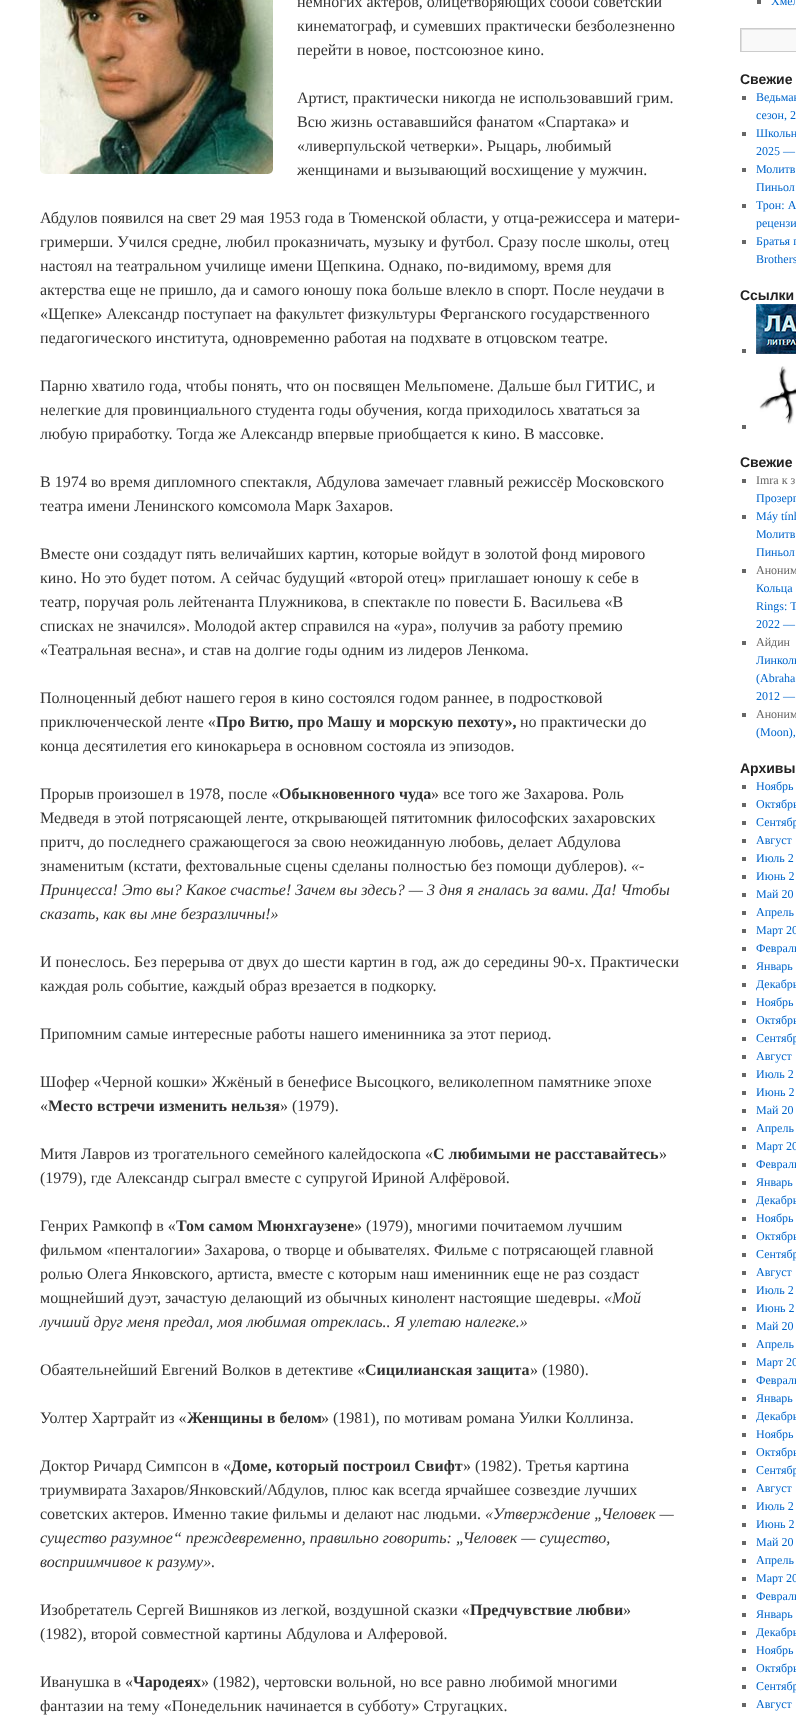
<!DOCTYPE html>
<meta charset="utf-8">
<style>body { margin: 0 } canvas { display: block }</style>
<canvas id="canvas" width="796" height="1717"></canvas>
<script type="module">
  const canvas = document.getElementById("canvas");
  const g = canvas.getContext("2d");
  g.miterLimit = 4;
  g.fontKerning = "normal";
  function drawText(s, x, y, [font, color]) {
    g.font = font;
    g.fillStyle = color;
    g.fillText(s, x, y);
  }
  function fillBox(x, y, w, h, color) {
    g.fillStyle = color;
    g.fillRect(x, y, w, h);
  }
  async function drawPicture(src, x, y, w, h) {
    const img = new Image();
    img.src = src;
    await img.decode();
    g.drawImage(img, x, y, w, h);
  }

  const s1 = ["16px Liberation Serif", "#333333"];
  const s2 = ["bold 16px Liberation Serif", "#333333"];
  const s3 = ["italic 16px Liberation Serif", "#333333"];
  const s4 = ["12px Liberation Serif", "#0066CC"];
  const s5 = ["bold 14px Liberation Sans", "#222222"];
  const s6 = ["12px Liberation Serif", "#666666"];

  fillBox(0, 0, 796, 1717, "#FFFFFF");
  await drawPicture("pic1.png", 40, 0, 233, 174);
  drawText("немногих актеров, олицетворяющих собой советский", 297, 7, s1);
  drawText("кинематограф, и сумевших практически безболезненно", 297, 31, s1);
  drawText("перейти в новое, постсоюзное кино.", 297, 55, s1);
  drawText("Артист, практически никогда не использовавший грим.", 297, 103, s1);
  drawText("Всю жизнь остававшийся фанатом «Спартака» и", 297, 127, s1);
  drawText("«ливерпульской четверки». Рыцарь, любимый", 297, 151, s1);
  drawText("женщинами и вызывающий восхищение у мужчин.", 297, 175, s1);
  drawText("Абдулов появился на свет 29 мая 1953 года в Тюменской области, у отца-режиссера и матери-", 40, 223, s1);
  drawText("гримерши. Учился средне, любил проказничать, музыку и футбол. Сразу после школы, отец", 40, 247, s1);
  drawText("настоял на театральном училище имени Щепкина. Однако, по-видимому, время для", 40, 271, s1);
  drawText("актерства еще не пришло, да и самого юношу пока больше влекло в спорт. После неудачи в", 40, 295, s1);
  drawText("«Щепке» Александр поступает на факультет физкультуры Ферганского государственного", 40, 319, s1);
  drawText("педагогического института, одновременно работая на подхвате в отцовском театре.", 40, 343, s1);
  drawText("Парню хватило года, чтобы понять, что он посвящен Мельпомене. Дальше был ГИТИС, и", 40, 391, s1);
  drawText("нелегкие для провинциального студента годы обучения, когда приходилось хвататься за", 40, 415, s1);
  drawText("любую приработку. Тогда же Александр впервые приобщается к кино. В массовке.", 40, 439, s1);
  drawText("В 1974 во время дипломного спектакля, Абдулова замечает главный режиссёр Московского", 40, 487, s1);
  drawText("театра имени Ленинского комсомола Марк Захаров.", 40, 511, s1);
  drawText("Вместе они создадут пять величайших картин, которые войдут в золотой фонд мирового", 40, 559, s1);
  drawText("кино. Но это будет потом. А сейчас будущий «второй отец» приглашает юношу к себе в", 40, 583, s1);
  drawText("театр, поручая роль лейтенанта Плужникова, в спектакле по повести Б. Васильева «В", 40, 607, s1);
  drawText("списках не значился». Молодой актер справился на «ура», получив за работу премию", 40, 631, s1);
  drawText("«Театральная весна», и став на долгие годы одним из лидеров Ленкома.", 40, 655, s1);
  drawText("Полноценный дебют нашего героя в кино состоялся годом раннее, в подростковой", 40, 703, s1);
  drawText("приключенческой ленте «", 40, 727, s1);
  drawText("Про Витю, про Машу и морскую пехоту»,", 216, 727, s2);
  drawText("но практически до", 520, 727, s1);
  drawText("конца десятилетия его кинокарьера в основном состояла из эпизодов.", 40, 751, s1);
  drawText("Прорыв произошел в 1978, после «", 40, 799, s1);
  drawText("Обыкновенного чуда", 279, 799, s2);
  drawText("» все того же Захарова. Роль", 431, 799, s1);
  drawText("Медведя в этой потрясающей ленте, открывающей пятитомник философских захаровских", 40, 823, s1);
  drawText("притч, до последнего сражающегося за свою неожиданную любовь, делает Абдулова", 40, 847, s1);
  drawText("знаменитым (кстати, фехтовальные сцены сделаны полностью без помощи дублеров).", 40, 871, s1);
  drawText("«-", 631, 871, s3);
  drawText("Принцесса! Это вы? Какое счастье! Зачем вы здесь? — 3 дня я гналась за вами. Да! Чтобы", 40, 895, s3);
  drawText("сказать, как вы мне безразличны!»", 40, 919, s3);
  drawText("И понеслось. Без перерыва от двух до шести картин в год, аж до середины 90-х. Практически", 40, 967, s1);
  drawText("каждая роль событие, каждый образ врезается в подкорку.", 40, 991, s1);
  drawText("Припомним самые интересные работы нашего именинника за этот период.", 40, 1039, s1);
  drawText("Шофер «Черной кошки» Жжёный в бенефисе Высоцкого, великолепном памятнике эпохе", 40, 1087, s1);
  drawText("«", 40, 1111, s1);
  drawText("Место встречи изменить нельзя", 48, 1111, s2);
  drawText("» (1979).", 280, 1111, s1);
  drawText("Митя Лавров из трогательного семейного калейдоскопа «", 40, 1159, s1);
  drawText("С любимыми не расставайтесь", 433, 1159, s2);
  drawText("»", 659, 1159, s1);
  drawText("(1979), где Александр сыграл вместе с супругой Ириной Алфёровой.", 40, 1183, s1);
  drawText("Генрих Рамкопф в «", 40, 1231, s1);
  drawText("Том самом Мюнхгаузене", 176, 1231, s2);
  drawText("» (1979), многими почитаемом лучшим", 354, 1231, s1);
  drawText("фильмом «пенталогии» Захарова, о творце и обывателях. Фильме с потрясающей главной", 40, 1255, s1);
  drawText("ролью Олега Янковского, артиста, вместе с которым наш именинник еще не раз создаст", 40, 1279, s1);
  drawText("мощнейший дуэт, зачастую делающий из обычных кинолент настоящие шедевры.", 40, 1303, s1);
  drawText("«Мой", 604, 1303, s3);
  drawText("лучший друг меня предал, моя любимая отреклась.. Я улетаю налегке.»", 40, 1327, s3);
  drawText("Обаятельнейший Евгений Волков в детективе «", 40, 1375, s1);
  drawText("Сицилианская защита", 365, 1375, s2);
  drawText("» (1980).", 530, 1375, s1);
  drawText("Уолтер Хартрайт из «", 40, 1423, s1);
  drawText("Женщины в белом", 187, 1423, s2);
  drawText("» (1981), по мотивам романа Уилки Коллинза.", 321, 1423, s1);
  drawText("Доктор Ричард Симпсон в «", 40, 1471, s1);
  drawText("Доме, который построил Свифт", 231, 1471, s2);
  drawText("» (1982). Третья картина", 463, 1471, s1);
  drawText("триумвирата Захаров/Янковский/Абдулов, плюс как всегда ярчайшее созвездие лучших", 40, 1495, s1);
  drawText("советских актеров. Именно такие фильмы и делают нас людьми.", 40, 1519, s1);
  drawText("«Утверждение „Человек —", 485, 1519, s3);
  drawText("существо разумное“ преждевременно, правильно говорить: „Человек — существо,", 40, 1543, s3);
  drawText("восприимчивое к разуму».", 40, 1567, s3);
  drawText("Изобретатель Сергей Вишняков из легкой, воздушной сказки «", 40, 1615, s1);
  drawText("Предчувствие любви", 470, 1615, s2);
  drawText("»", 623, 1615, s1);
  drawText("(1982), второй совместной картины Абдулова и Алферовой.", 40, 1639, s1);
  drawText("Иванушка в «", 40, 1687, s1);
  drawText("Чародеях", 133, 1687, s2);
  drawText("» (1982), чертовски вольной, но все равно любимой многими", 201, 1687, s1);
  drawText("фантазии на тему «Понедельник начинается в субботу» Стругацких.", 40, 1711, s1);
  fillBox(757, 0, 4, 4, "#666666");
  drawText("Хмел", 771, 5, s4);
  fillBox(742, 30, 54, 21, "#F9F9F9");
  g.save();
  g.beginPath();
  g.rect(741, 29, 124, 22);
  g.clip();
  g.fillStyle = "#E0E0E0";
  g.beginPath();
  g.moveTo(642, -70);
  g.lineTo(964, -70);
  g.lineTo(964, 150);
  g.lineTo(642, 150);
  g.closePath();
  g.moveTo(742, 30);
  g.lineTo(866, 30);
  g.lineTo(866, 52);
  g.lineTo(742, 52);
  g.closePath();
  g.fill("evenodd");
  g.restore();
  g.strokeStyle = "#CCCCCC";
  g.strokeRect(740.5, 28.5, 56, 23);
  drawText("Свежие", 740, 84, s5);
  fillBox(742, 96, 4, 4, "#666666");
  drawText("Ведьмак", 756, 101, s4);
  drawText("сезон, 2", 756, 119, s4);
  fillBox(742, 132, 4, 4, "#666666");
  drawText("Школьн", 756, 137, s4);
  drawText("2025 —", 756, 155, s4);
  fillBox(742, 168, 4, 4, "#666666");
  drawText("Молитв", 756, 173, s4);
  drawText("Пиньол", 756, 191, s4);
  fillBox(742, 204, 4, 4, "#666666");
  drawText("Трон: А", 756, 209, s4);
  drawText("рецензи", 756, 227, s4);
  fillBox(742, 240, 4, 4, "#666666");
  drawText("Братья п", 756, 245, s4);
  drawText("Brothers", 756, 263, s4);
  drawText("Ссылки", 740, 300, s5);
  fillBox(742, 349, 4, 4, "#666666");
  await drawPicture("pic2.png", 756, 304, 40, 50);
  await drawPicture("pic3.png", 759, 366, 37, 59);
  fillBox(742, 425, 4, 4, "#666666");
  drawText("Свежие", 740, 467, s5);
  fillBox(742, 479, 4, 4, "#666666");
  drawText("Imra к з", 756, 484, s6);
  drawText("Прозерп", 756, 502, s4);
  fillBox(742, 515, 4, 4, "#666666");
  drawText("Máy tính", 756, 520, s4);
  drawText("Молитв", 756, 538, s4);
  drawText("Пиньол", 756, 556, s4);
  fillBox(742, 569, 4, 4, "#666666");
  drawText("Аноним", 756, 574, s6);
  drawText("Кольца", 756, 592, s4);
  drawText("Rings: T", 756, 610, s4);
  drawText("2022 —", 756, 628, s4);
  fillBox(742, 641, 4, 4, "#666666");
  drawText("Айдин", 756, 646, s6);
  drawText("Линколь", 756, 664, s4);
  drawText("(Abraha", 756, 682, s4);
  drawText("2012 —", 756, 700, s4);
  fillBox(742, 713, 4, 4, "#666666");
  drawText("Аноним", 756, 718, s6);
  drawText("(Moon),", 756, 736, s4);
  drawText("Архивы", 740, 773, s5);
  fillBox(742, 785, 4, 4, "#666666");
  drawText("Ноябрь", 756, 790, s4);
  fillBox(742, 803, 4, 4, "#666666");
  drawText("Октябрь", 756, 808, s4);
  fillBox(742, 821, 4, 4, "#666666");
  drawText("Сентябр", 756, 826, s4);
  fillBox(742, 839, 4, 4, "#666666");
  drawText("Август", 756, 844, s4);
  fillBox(742, 857, 4, 4, "#666666");
  drawText("Июль 2", 756, 862, s4);
  fillBox(742, 875, 4, 4, "#666666");
  drawText("Июнь 2", 756, 880, s4);
  fillBox(742, 893, 4, 4, "#666666");
  drawText("Май 20", 756, 898, s4);
  fillBox(742, 911, 4, 4, "#666666");
  drawText("Апрель", 756, 916, s4);
  fillBox(742, 929, 4, 4, "#666666");
  drawText("Март 20", 756, 934, s4);
  fillBox(742, 947, 4, 4, "#666666");
  drawText("Февраль", 756, 952, s4);
  fillBox(742, 965, 4, 4, "#666666");
  drawText("Январь", 756, 970, s4);
  fillBox(742, 983, 4, 4, "#666666");
  drawText("Декабрь", 756, 988, s4);
  fillBox(742, 1001, 4, 4, "#666666");
  drawText("Ноябрь", 756, 1006, s4);
  fillBox(742, 1019, 4, 4, "#666666");
  drawText("Октябрь", 756, 1024, s4);
  fillBox(742, 1037, 4, 4, "#666666");
  drawText("Сентябр", 756, 1042, s4);
  fillBox(742, 1055, 4, 4, "#666666");
  drawText("Август", 756, 1060, s4);
  fillBox(742, 1073, 4, 4, "#666666");
  drawText("Июль 2", 756, 1078, s4);
  fillBox(742, 1091, 4, 4, "#666666");
  drawText("Июнь 2", 756, 1096, s4);
  fillBox(742, 1109, 4, 4, "#666666");
  drawText("Май 20", 756, 1114, s4);
  fillBox(742, 1127, 4, 4, "#666666");
  drawText("Апрель", 756, 1132, s4);
  fillBox(742, 1145, 4, 4, "#666666");
  drawText("Март 20", 756, 1150, s4);
  fillBox(742, 1163, 4, 4, "#666666");
  drawText("Февраль", 756, 1168, s4);
  fillBox(742, 1181, 4, 4, "#666666");
  drawText("Январь", 756, 1186, s4);
  fillBox(742, 1199, 4, 4, "#666666");
  drawText("Декабрь", 756, 1204, s4);
  fillBox(742, 1217, 4, 4, "#666666");
  drawText("Ноябрь", 756, 1222, s4);
  fillBox(742, 1235, 4, 4, "#666666");
  drawText("Октябрь", 756, 1240, s4);
  fillBox(742, 1253, 4, 4, "#666666");
  drawText("Сентябр", 756, 1258, s4);
  fillBox(742, 1271, 4, 4, "#666666");
  drawText("Август", 756, 1276, s4);
  fillBox(742, 1289, 4, 4, "#666666");
  drawText("Июль 2", 756, 1294, s4);
  fillBox(742, 1307, 4, 4, "#666666");
  drawText("Июнь 2", 756, 1312, s4);
  fillBox(742, 1325, 4, 4, "#666666");
  drawText("Май 20", 756, 1330, s4);
  fillBox(742, 1343, 4, 4, "#666666");
  drawText("Апрель", 756, 1348, s4);
  fillBox(742, 1361, 4, 4, "#666666");
  drawText("Март 20", 756, 1366, s4);
  fillBox(742, 1379, 4, 4, "#666666");
  drawText("Февраль", 756, 1384, s4);
  fillBox(742, 1397, 4, 4, "#666666");
  drawText("Январь", 756, 1402, s4);
  fillBox(742, 1415, 4, 4, "#666666");
  drawText("Декабрь", 756, 1420, s4);
  fillBox(742, 1433, 4, 4, "#666666");
  drawText("Ноябрь", 756, 1438, s4);
  fillBox(742, 1451, 4, 4, "#666666");
  drawText("Октябрь", 756, 1456, s4);
  fillBox(742, 1469, 4, 4, "#666666");
  drawText("Сентябр", 756, 1474, s4);
  fillBox(742, 1487, 4, 4, "#666666");
  drawText("Август", 756, 1492, s4);
  fillBox(742, 1505, 4, 4, "#666666");
  drawText("Июль 2", 756, 1510, s4);
  fillBox(742, 1523, 4, 4, "#666666");
  drawText("Июнь 2", 756, 1528, s4);
  fillBox(742, 1541, 4, 4, "#666666");
  drawText("Май 20", 756, 1546, s4);
  fillBox(742, 1559, 4, 4, "#666666");
  drawText("Апрель", 756, 1564, s4);
  fillBox(742, 1577, 4, 4, "#666666");
  drawText("Март 20", 756, 1582, s4);
  fillBox(742, 1595, 4, 4, "#666666");
  drawText("Февраль", 756, 1600, s4);
  fillBox(742, 1613, 4, 4, "#666666");
  drawText("Январь", 756, 1618, s4);
  fillBox(742, 1631, 4, 4, "#666666");
  drawText("Декабрь", 756, 1636, s4);
  fillBox(742, 1649, 4, 4, "#666666");
  drawText("Ноябрь", 756, 1654, s4);
  fillBox(742, 1667, 4, 4, "#666666");
  drawText("Октябрь", 756, 1672, s4);
  fillBox(742, 1685, 4, 4, "#666666");
  drawText("Сентябр", 756, 1690, s4);
  fillBox(742, 1703, 4, 4, "#666666");
  drawText("Август", 756, 1708, s4);
</script>
